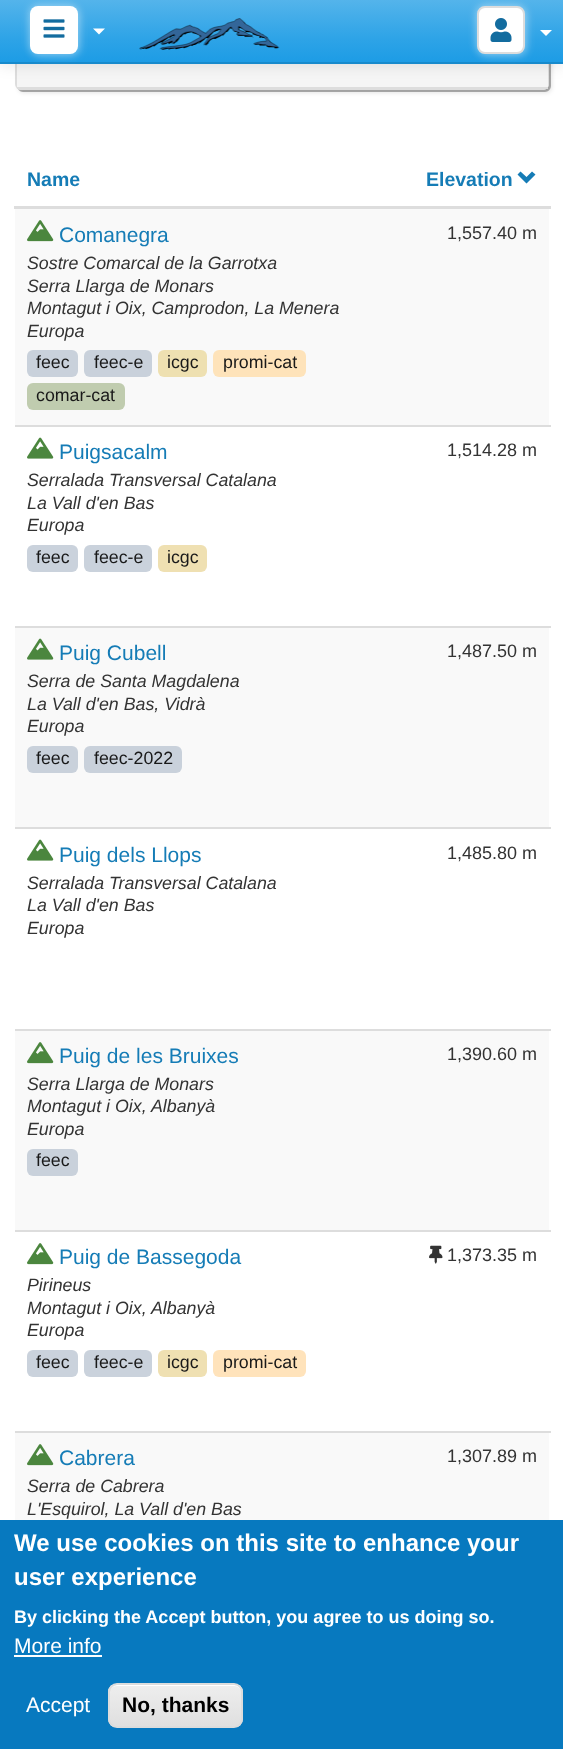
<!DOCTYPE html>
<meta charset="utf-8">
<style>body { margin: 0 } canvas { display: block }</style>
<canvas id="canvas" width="563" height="1749"></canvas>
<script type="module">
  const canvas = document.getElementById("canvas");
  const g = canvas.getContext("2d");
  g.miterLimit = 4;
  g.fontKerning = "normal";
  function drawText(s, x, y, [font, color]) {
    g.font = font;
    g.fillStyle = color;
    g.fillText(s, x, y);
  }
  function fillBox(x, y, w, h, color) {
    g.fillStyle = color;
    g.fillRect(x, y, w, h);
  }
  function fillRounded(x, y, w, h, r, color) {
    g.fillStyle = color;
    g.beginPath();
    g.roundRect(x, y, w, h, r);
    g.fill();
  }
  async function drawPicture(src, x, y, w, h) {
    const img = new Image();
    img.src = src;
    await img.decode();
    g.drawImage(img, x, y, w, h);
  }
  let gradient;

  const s1 = ["bold 19.5px Liberation Sans", "#157CB6"];
  const s2 = ["21px Liberation Sans", "#157CB6"];
  const s3 = ["italic 17.8px Liberation Sans", "#333333"];
  const s4 = ["17.8px Liberation Sans", "#191919"];
  const s5 = ["18px Liberation Sans", "#333333"];
  const s6 = ["bold 24px Liberation Sans", "#FFFFFF"];
  const s7 = ["bold 18px Liberation Sans", "#FFFFFF"];
  const s8 = ["21px Liberation Sans", "#FFFFFF"];
  const s9 = ["bold 21px Liberation Sans", "#000000"];

  fillBox(0, 0, 563, 1749, "#FFFFFF");
  g.fillStyle = "rgba(0, 0, 0, 0.1)";
  g.filter = "blur(2px)";
  g.beginPath();
  g.roundRect(18, 24, 534, 69, 6);
  g.fill();
  g.filter = "none";
  g.fillStyle = "rgba(0, 0, 0, 0.3)";
  g.beginPath();
  g.moveTo(18, 89);
  g.bezierCurveTo(19, 91, 21, 92, 23, 92);
  g.lineTo(545, 92);
  g.bezierCurveTo(548, 92, 551, 89, 551, 86);
  g.lineTo(551, 29);
  g.bezierCurveTo(551, 27, 550, 25, 548, 24);
  g.lineTo(549, 27);
  g.lineTo(549, 84);
  g.bezierCurveTo(549, 87, 546, 90, 543, 90);
  g.lineTo(21, 90);
  g.closePath();
  g.fill();
  g.beginPath();
  g.roundRect(16, 22, 532, 67, 5);
  g.strokeStyle = "#DDDDDD";
  g.lineWidth = 2;
  g.stroke();
  fillBox(17, 64, 531, 23, "#F5F5F5");
  fillBox(17, 87, 531, 2, "#DDDDDD");
  g.fillStyle = "rgba(0, 0, 0, 0.1)";
  g.filter = "blur(7.5px)";
  g.beginPath();
  g.rect(0, 2, 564, 63);
  g.fill();
  g.filter = "none";
  gradient = g.createLinearGradient(282, 0, 282, 62);
  gradient.addColorStop(0, "#54B4EB");
  gradient.addColorStop(0.6, "#2FA4E7");
  gradient.addColorStop(1, "#1D9CE5");
  g.fillStyle = gradient;
  g.fillRect(0, 0, 563, 62);
  fillBox(0, 62, 563, 2, "#178ACC");
  g.fillStyle = "rgba(255, 255, 255, 0.3)";
  g.filter = "blur(4px)";
  g.beginPath();
  g.roundRect(29, 5, 48, 48, 8);
  g.fill();
  g.filter = "none";
  g.filter = "blur(4px)";
  g.beginPath();
  g.roundRect(32, 8, 48, 48, 8);
  g.fill();
  g.filter = "none";
  fillRounded(30, 6, 48, 48, 8, "#FFFFFF");
  await drawPicture("pic1.png", 43, 19, 22, 19);
  g.beginPath();
  g.moveTo(93, 28.5);
  g.lineTo(105, 28.5);
  g.lineTo(99, 34.5);
  g.closePath();
  g.fill();
  await drawPicture("pic2.png", 139, 18, 141, 32);
  g.fillStyle = "rgba(255, 255, 255, 0.3)";
  g.filter = "blur(4px)";
  g.beginPath();
  g.roundRect(476, 5, 48, 48, 8);
  g.fill();
  g.filter = "none";
  g.filter = "blur(4px)";
  g.beginPath();
  g.roundRect(479, 8, 48, 48, 8);
  g.fill();
  g.filter = "none";
  g.fillStyle = "#FFFFFF";
  g.beginPath();
  g.roundRect(478, 7, 46, 46, 7);
  g.fill();
  g.stroke();
  await drawPicture("pic3.png", 490, 18, 22, 24);
  g.beginPath();
  g.moveTo(540, 30);
  g.lineTo(552, 30);
  g.lineTo(546, 36);
  g.closePath();
  g.fill();
  drawText("Name", 27, 186, s1);
  fillBox(14, 206, 537, 3, "#DDDDDD");
  drawText("Elevation", 426, 186, s1);
  g.beginPath();
  g.moveTo(535.5, 174.5);
  g.lineTo(526.5, 183.5);
  g.lineTo(517.5, 174.5);
  g.lineTo(520.5, 171.5);
  g.lineTo(526.5, 177);
  g.lineTo(532, 171.5);
  g.closePath();
  g.fill();
  fillBox(15, 209, 534, 216, "#F9F9F9");
  await drawPicture("pic4.png", 27, 220, 27, 22);
  drawText("Comanegra", 59, 242, s2);
  drawText("Sostre Comarcal de la Garrotxa", 27, 269, s3);
  drawText("Serra Llarga de Monars", 27, 292, s3);
  drawText("Montagut i Oix, Camprodon, La Menera", 27, 314, s3);
  drawText("Europa", 27, 337, s3);
  fillRounded(27, 350, 51, 27, 6, "#C9D1DB");
  drawText("feec", 36, 368, s4);
  fillRounded(84, 350, 68, 27, 6, "#C9D1DB");
  drawText("feec-e", 94, 368, s4);
  fillRounded(158, 350, 49, 27, 6, "#EEE0B1");
  drawText("icgc", 167, 368, s4);
  fillRounded(213, 350, 93, 27, 6, "#FEE3BA");
  drawText("promi-cat", 223, 368, s4);
  fillRounded(27, 383, 98, 27, 6, "#C0CCAF");
  drawText("comar-cat", 36, 401, s4);
  drawText("1,557.40 m", 447, 239, s5);
  await drawPicture("pic5.png", 27, 437, 27, 22);
  drawText("Puigsacalm", 59, 459, s2);
  drawText("Serralada Transversal Catalana", 27, 486, s3);
  drawText("La Vall d'en Bas", 27, 509, s3);
  drawText("Europa", 27, 531, s3);
  fillRounded(27, 545, 51, 27, 6, "#CAD2DC");
  drawText("feec", 36, 563, s4);
  fillRounded(84, 545, 68, 27, 6, "#CAD2DC");
  drawText("feec-e", 94, 563, s4);
  fillRounded(158, 545, 49, 27, 6, "#EFE0B2");
  drawText("icgc", 167, 563, s4);
  fillBox(15, 425, 536, 2, "#DDDDDD");
  drawText("1,514.28 m", 447, 456, s5);
  fillBox(15, 628, 534, 199, "#F9F9F9");
  await drawPicture("pic6.png", 27, 638, 27, 22);
  drawText("Puig Cubell", 59, 660, s2);
  drawText("Serra de Santa Magdalena", 27, 687, s3);
  drawText("La Vall d'en Bas, Vidrà", 27, 710, s3);
  drawText("Europa", 27, 732, s3);
  fillRounded(27, 746, 51, 27, 6, "#C9D1DB");
  drawText("feec", 36, 764, s4);
  fillRounded(84, 746, 98, 27, 6, "#C9D1DB");
  drawText("feec-2022", 94, 764, s4);
  fillBox(15, 626, 536, 2, "#DDDDDD");
  drawText("1,487.50 m", 447, 657, s5);
  await drawPicture("pic5.png", 27, 839, 27, 22);
  drawText("Puig dels Llops", 59, 862, s2);
  drawText("Serralada Transversal Catalana", 27, 889, s3);
  drawText("La Vall d'en Bas", 27, 911, s3);
  drawText("Europa", 27, 934, s3);
  fillBox(15, 827, 536, 2, "#DDDDDD");
  drawText("1,485.80 m", 447, 859, s5);
  fillBox(15, 1031, 534, 199, "#F9F9F9");
  await drawPicture("pic4.png", 27, 1042, 27, 22);
  drawText("Puig de les Bruixes", 59, 1063, s2);
  drawText("Serra Llarga de Monars", 27, 1090, s3);
  drawText("Montagut i Oix,", 27, 1112, s3);
  drawText("Albanyà", 151, 1112, s3);
  drawText("Europa", 27, 1135, s3);
  fillRounded(27, 1149, 51, 27, 6, "#C9D1DB");
  drawText("feec", 36, 1166, s4);
  fillBox(15, 1029, 536, 2, "#DDDDDD");
  drawText("1,390.60 m", 447, 1060, s5);
  await drawPicture("pic7.png", 27, 1243, 27, 22);
  drawText("Puig de Bassegoda", 59, 1264, s2);
  drawText("Pirineus", 27, 1291, s3);
  drawText("Montagut i Oix,", 27, 1314, s3);
  drawText("Albanyà", 151, 1314, s3);
  drawText("Europa", 27, 1336, s3);
  fillRounded(27, 1350, 51, 27, 6, "#CAD2DC");
  drawText("feec", 36, 1368, s4);
  fillRounded(84, 1350, 68, 27, 6, "#CAD2DC");
  drawText("feec-e", 94, 1368, s4);
  fillRounded(158, 1350, 49, 27, 6, "#EFE0B2");
  drawText("icgc", 167, 1368, s4);
  fillRounded(213, 1350, 93, 27, 6, "#FFE3BB");
  drawText("promi-cat", 223, 1368, s4);
  fillBox(15, 1230, 536, 2, "#DDDDDD");
  await drawPicture("pic8.png", 429, 1245, 14, 19);
  drawText("1,373.35 m", 447, 1261, s5);
  fillBox(15, 1433, 534, 87, "#F9F9F9");
  await drawPicture("pic4.png", 27, 1444, 27, 22);
  drawText("Cabrera", 59, 1465, s2);
  drawText("Serra de Cabrera", 27, 1492, s3);
  drawText("L'Esquirol, La Vall d'en Bas", 27, 1515, s3);
  fillBox(15, 1431, 536, 2, "#DDDDDD");
  drawText("1,307.89 m", 447, 1462, s5);
  fillBox(0, 1520, 563, 229, "#0779BF");
  drawText("We use cookies on this site to enhance your", 14, 1551, s6);
  drawText("user experience", 14, 1585, s6);
  drawText("By clicking the Accept button, you agree to us doing so.", 14, 1623, s7);
  drawText("More info", 14, 1653, s8);
  fillBox(14, 1655, 88, 2, "#FFFFFF");
  drawText("Accept", 26, 1712, s8);
  g.save();
  g.beginPath();
  g.roundRect(108, 1683, 135, 45, 9);
  g.clip();
  gradient = g.createLinearGradient(176, 1685, 176, 1727);
  gradient.addColorStop(0.05, "#EDEDED");
  gradient.addColorStop(1, "#DFDFDF");
  g.fillStyle = gradient;
  g.fillRect(108, 1685, 135, 42);
  g.restore();
  g.beginPath();
  g.moveTo(117, 1686);
  g.lineTo(234, 1686);
  g.bezierCurveTo(238, 1686, 242, 1689, 242, 1694);
  g.bezierCurveTo(242, 1680, 222, 1685, 215, 1685);
  g.lineTo(137, 1685);
  g.bezierCurveTo(130, 1685, 110, 1680, 110, 1694);
  g.bezierCurveTo(110, 1689, 113, 1686, 117, 1686);
  g.closePath();
  g.fill();
  g.beginPath();
  g.roundRect(109, 1684, 133, 43, 8);
  g.strokeStyle = "#DCDCDC";
  g.stroke();
  drawText("No, thanks", 122, 1712, s9);
</script>
